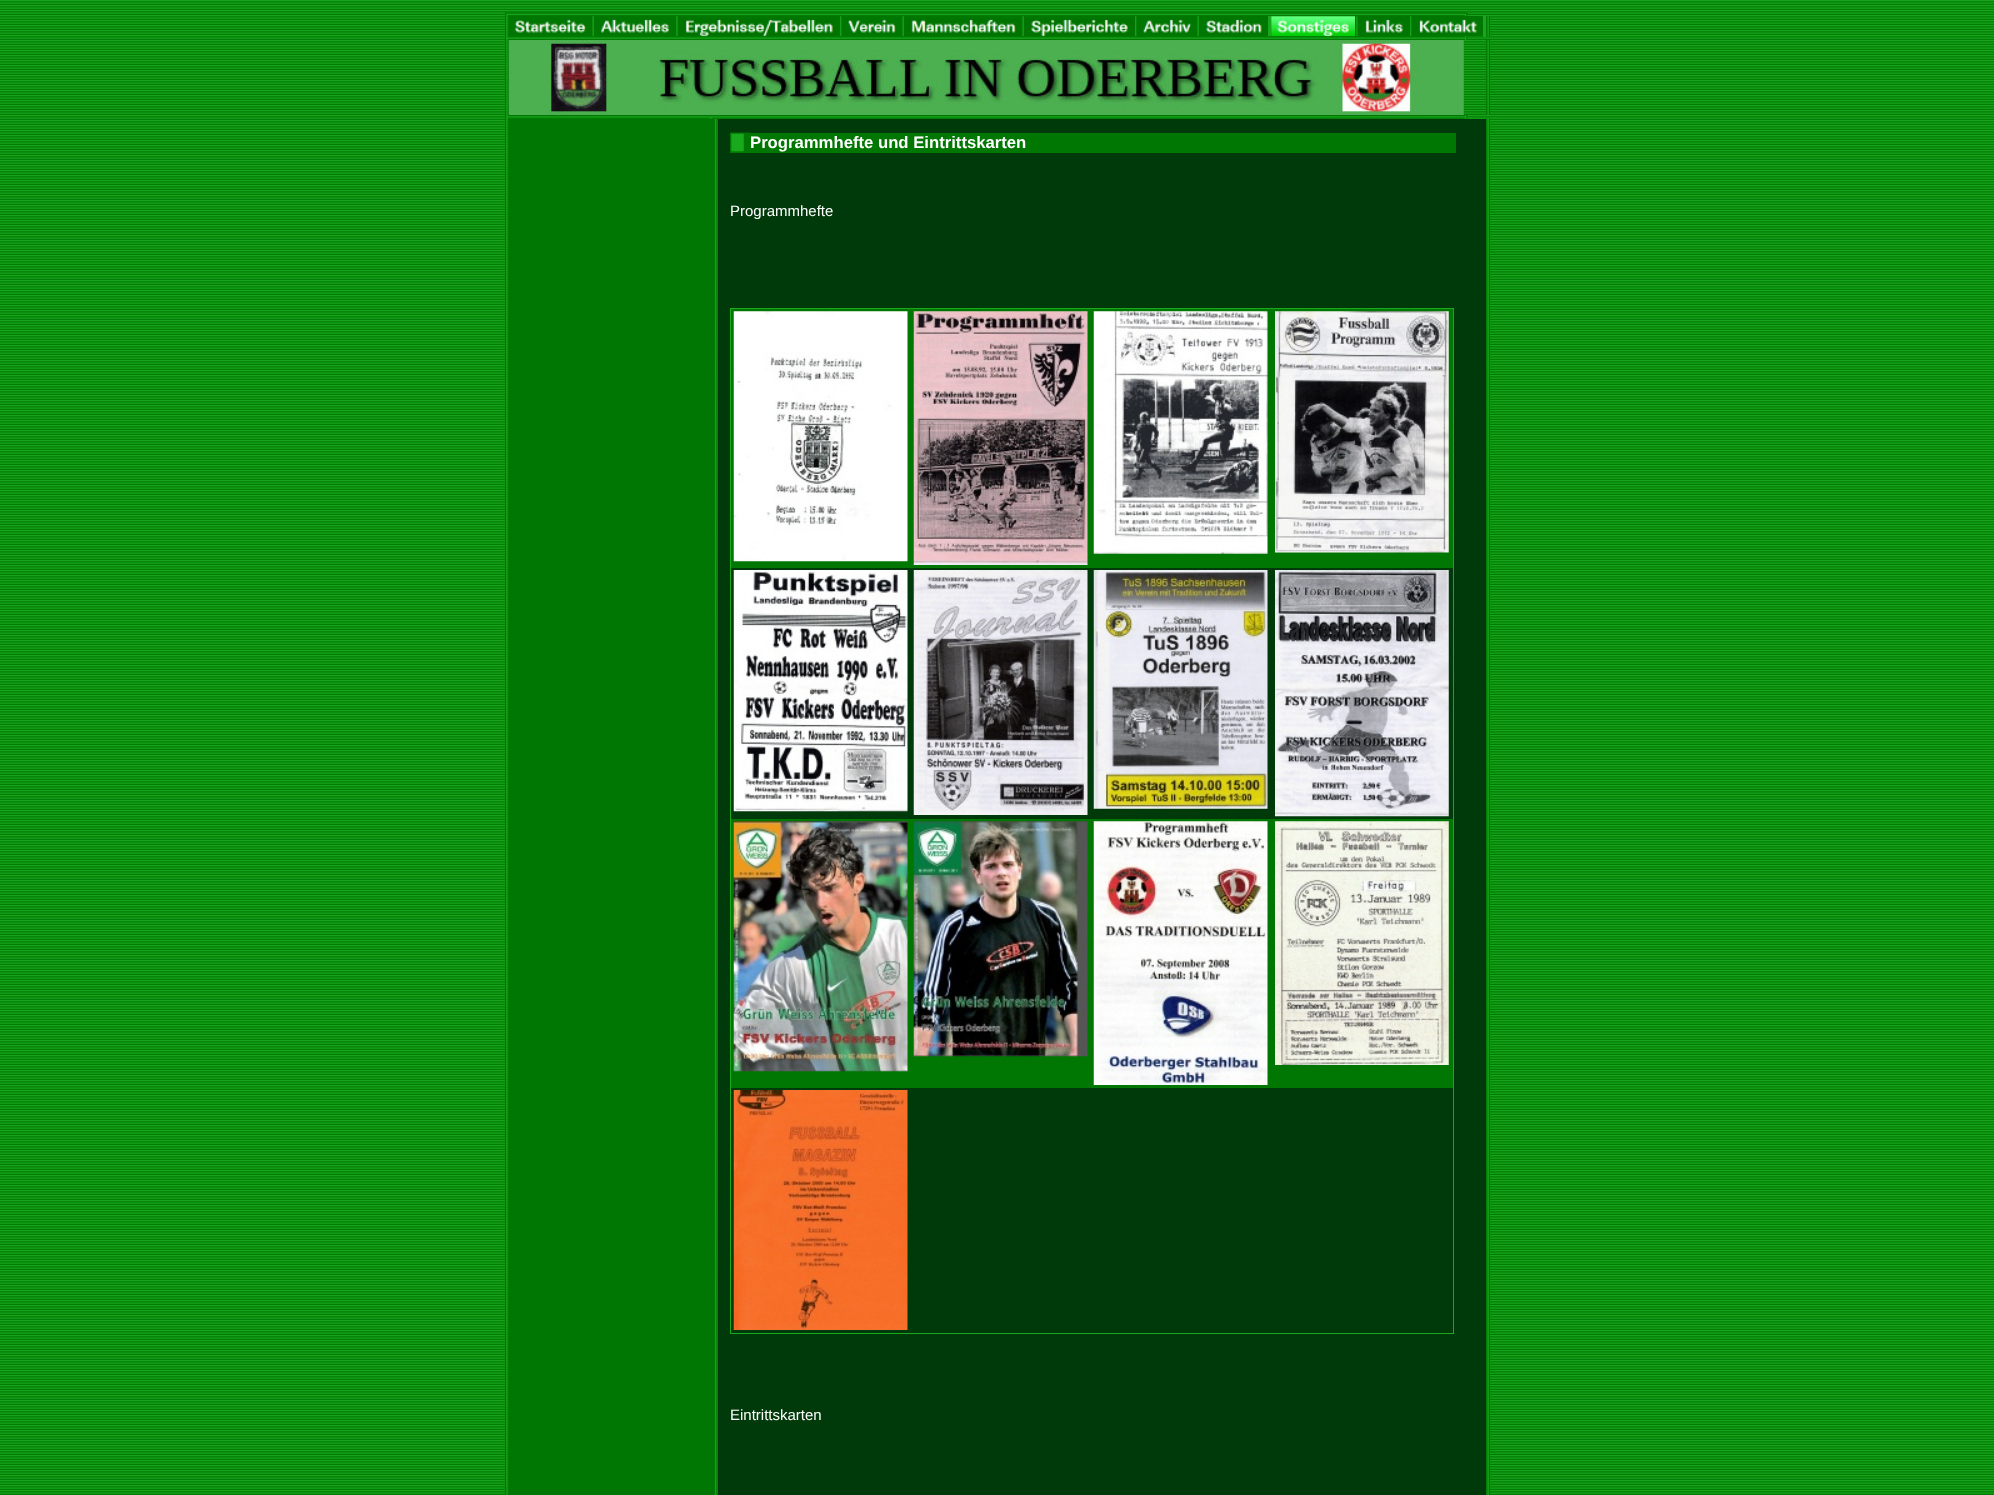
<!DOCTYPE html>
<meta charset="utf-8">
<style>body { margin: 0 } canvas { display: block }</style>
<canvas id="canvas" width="1994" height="1495"></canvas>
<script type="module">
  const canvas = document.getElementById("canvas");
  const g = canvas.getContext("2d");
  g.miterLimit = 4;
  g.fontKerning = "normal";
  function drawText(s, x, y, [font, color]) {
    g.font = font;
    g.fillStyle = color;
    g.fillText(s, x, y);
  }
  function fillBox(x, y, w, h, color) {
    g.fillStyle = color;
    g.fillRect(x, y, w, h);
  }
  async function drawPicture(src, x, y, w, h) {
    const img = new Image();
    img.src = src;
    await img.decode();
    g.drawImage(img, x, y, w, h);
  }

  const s1 = ["bold 16.7px Liberation Sans", "#FFFFFF"];
  const s2 = ["15px Liberation Sans", "#FFFFFF"];

  fillBox(0, 0, 1994, 1495, "#FFFFFF");
  await drawPicture("pic1.png", 0, 0, 1994, 1495);
  await drawPicture("pic3.png", 505, 16, 4, 21);
  fillBox(509, 16, 977, 20, "#007702");
  await drawPicture("pic2.png", 505, 12, 963, 5);
  await drawPicture("pic4.png", 514, 19, 72, 14);
  await drawPicture("pic5.png", 592, 16, 2, 21);
  await drawPicture("pic6.png", 601, 19, 68, 14);
  await drawPicture("pic7.png", 676, 16, 2, 21);
  await drawPicture("pic8.png", 679, 19, 159, 18);
  await drawPicture("pic9.png", 840, 16, 2, 21);
  await drawPicture("pic10.png", 848, 19, 48, 14);
  await drawPicture("pic5.png", 902, 16, 2, 21);
  await drawPicture("pic11.png", 905, 19, 116, 18);
  await drawPicture("pic5.png", 1022, 16, 2, 21);
  await drawPicture("pic12.png", 1025, 19, 108, 18);
  await drawPicture("pic9.png", 1135, 16, 2, 21);
  await drawPicture("pic13.png", 1143, 19, 49, 14);
  await drawPicture("pic5.png", 1197, 16, 2, 21);
  await drawPicture("pic14.png", 1206, 19, 56, 14);
  fillBox(1268, 16, 3, 21, "rgba(25, 169, 29, 0.94)");
  await drawPicture("pic15.png", 1271, 16, 84, 21);
  await drawPicture("pic16.png", 1356, 16, 2, 21);
  await drawPicture("pic17.png", 1365, 19, 38, 14);
  await drawPicture("pic9.png", 1410, 16, 2, 21);
  await drawPicture("pic18.png", 1418, 16, 60, 17);
  fillBox(1483, 16, 3, 21, "rgba(25, 169, 29, 0.94)");
  await drawPicture("pic19.png", 1486, 16, 4, 21);
  await drawPicture("pic20.png", 505, 36, 963, 4);
  await drawPicture("pic21.png", 505, 40, 4, 75);
  await drawPicture("pic22.png", 508, 40, 956, 75);
  await drawPicture("pic23.png", 1486, 40, 4, 75);
  await drawPicture("pic25.png", 505, 118, 4, 1377);
  await drawPicture("pic26.png", 714, 118, 4, 1377);
  await drawPicture("pic24.png", 505, 115, 963, 4);
  fillBox(509, 119, 205, 1376, "#007702");
  fillBox(718, 119, 768, 1376, "#003A0A");
  fillBox(730, 133, 726, 20, "#007702");
  await drawPicture("pic27.png", 730, 132, 20, 20);
  drawText("Programmhefte und Eintrittskarten", 750, 148, s1);
  drawText("Programmhefte", 730, 216, s2);
  fillBox(730, 308, 724, 1026, "#19A91D");
  fillBox(731, 309, 722, 259, "#007702");
  await drawPicture("pic28.png", 733, 311, 175, 251);
  await drawPicture("pic29.png", 913, 311, 175, 254);
  await drawPicture("pic30.png", 1093, 311, 175, 243);
  await drawPicture("pic31.png", 1275, 311, 174, 242);
  fillBox(731, 568, 722, 251, "#003A0A");
  await drawPicture("pic32.png", 733, 570, 175, 242);
  await drawPicture("pic33.png", 913, 570, 175, 245);
  await drawPicture("pic34.png", 1093, 570, 175, 239);
  await drawPicture("pic35.png", 1275, 570, 174, 247);
  fillBox(731, 819, 722, 269, "#007702");
  await drawPicture("pic36.png", 733, 821, 175, 251);
  await drawPicture("pic37.png", 913, 821, 175, 236);
  await drawPicture("pic38.png", 1093, 821, 175, 264);
  await drawPicture("pic39.png", 1275, 821, 174, 244);
  fillBox(731, 1088, 722, 245, "#003A0A");
  await drawPicture("pic40.png", 733, 1090, 175, 240);
  drawText("Eintrittskarten", 730, 1420, s2);
  await drawPicture("pic41.png", 1486, 118, 4, 1377);
</script>
